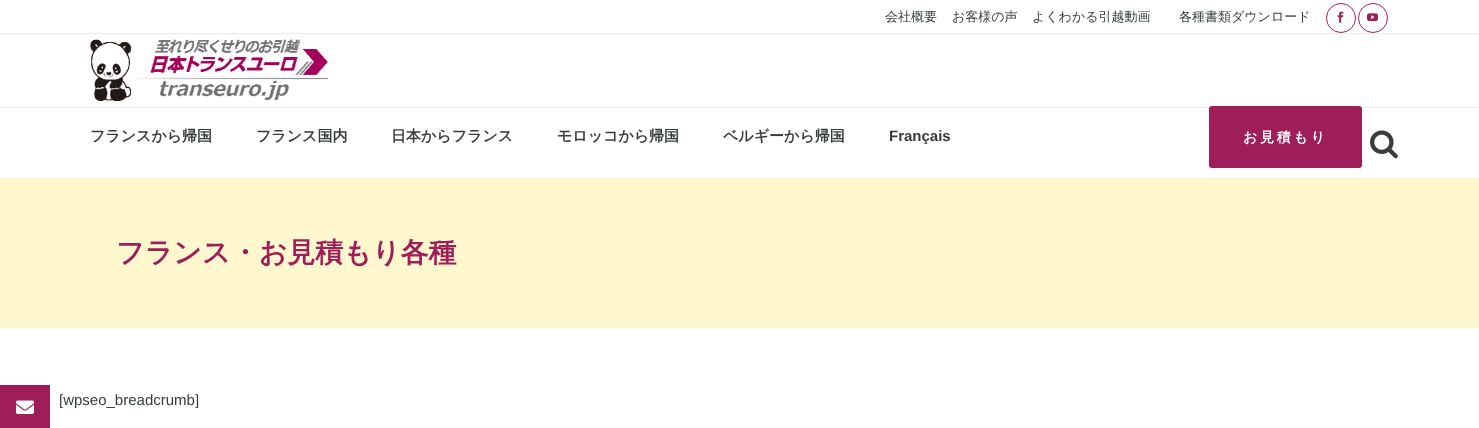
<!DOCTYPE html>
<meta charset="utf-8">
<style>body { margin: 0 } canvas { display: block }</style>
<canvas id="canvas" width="1479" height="428"></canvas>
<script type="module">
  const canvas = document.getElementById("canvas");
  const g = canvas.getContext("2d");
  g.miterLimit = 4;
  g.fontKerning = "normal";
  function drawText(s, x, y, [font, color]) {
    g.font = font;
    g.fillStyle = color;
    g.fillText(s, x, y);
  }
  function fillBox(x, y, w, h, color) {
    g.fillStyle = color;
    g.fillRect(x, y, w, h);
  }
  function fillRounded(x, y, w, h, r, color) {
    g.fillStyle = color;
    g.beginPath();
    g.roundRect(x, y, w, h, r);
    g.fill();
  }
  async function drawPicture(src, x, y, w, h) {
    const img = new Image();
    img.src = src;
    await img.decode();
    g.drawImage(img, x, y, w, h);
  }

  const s1 = ["500 13px WenQuanYi Zen Hei", "#373D3F"];
  const s2 = ["bold 15px WenQuanYi Zen Hei", "#373D3F"];
  const s3 = ["bold 15px Liberation Sans", "#373D3F"];
  const s4 = ["bold 14px WenQuanYi Zen Hei", "#FFFFFF"];
  const s5 = ["bold 28px WenQuanYi Zen Hei", "#9F1E5A"];
  const s6 = ["15px Liberation Sans", "#373D3F"];

  fillBox(0, 0, 1479, 428, "#FFFFFF");
  fillBox(0, 385, 50, 43, "#9F1E5A");
  await drawPicture("pic1.png", 16, 400, 18, 14);
  fillBox(0, 33, 1479, 1, "#EBEBEB");
  drawText("会社概要", 885, 21, s1);
  drawText("お客様の声", 952, 21, s1);
  drawText("よくわかる引越動画", 1032, 21, s1);
  drawText("各種書類ダウンロード", 1179, 21, s1);
  g.beginPath();
  g.arc(1341, 18, 14.5, 0, Math.PI * 2);
  g.strokeStyle = "#9F1E5A";
  g.stroke();
  await drawPicture("pic2.png", 1337, 11, 7, 12);
  g.beginPath();
  g.arc(1373, 18, 14.5, 0, Math.PI * 2);
  g.stroke();
  await drawPicture("pic3.png", 1367, 13, 11, 9);
  fillBox(0, 107, 1479, 1, "#EBEBEB");
  await drawPicture("pic4.png", 89, 39, 239, 62);
  drawText("フランスから帰国", 90, 141, s2);
  drawText("フランス国内", 256, 141, s2);
  drawText("日本からフランス", 391, 141, s2);
  drawText("モロッコから帰国", 557, 141, s2);
  drawText("ベルギーから帰国", 723, 141, s2);
  drawText("Français", 889, 141, s3);
  fillRounded(1209, 106, 153, 62, 3, "#9F1E5A");
  g.letterSpacing = "2.75px";
  drawText("お見積もり", 1243, 142, s4);
  await drawPicture("pic5.png", 1370, 130, 28, 29);
  fillBox(0, 178, 1479, 150, "#FFF8CE");
  g.letterSpacing = "0px";
  drawText("フランス・お見積もり各種", 116, 262, s5);
  drawText("[wpseo_breadcrumb]", 59, 405, s6);
</script>
